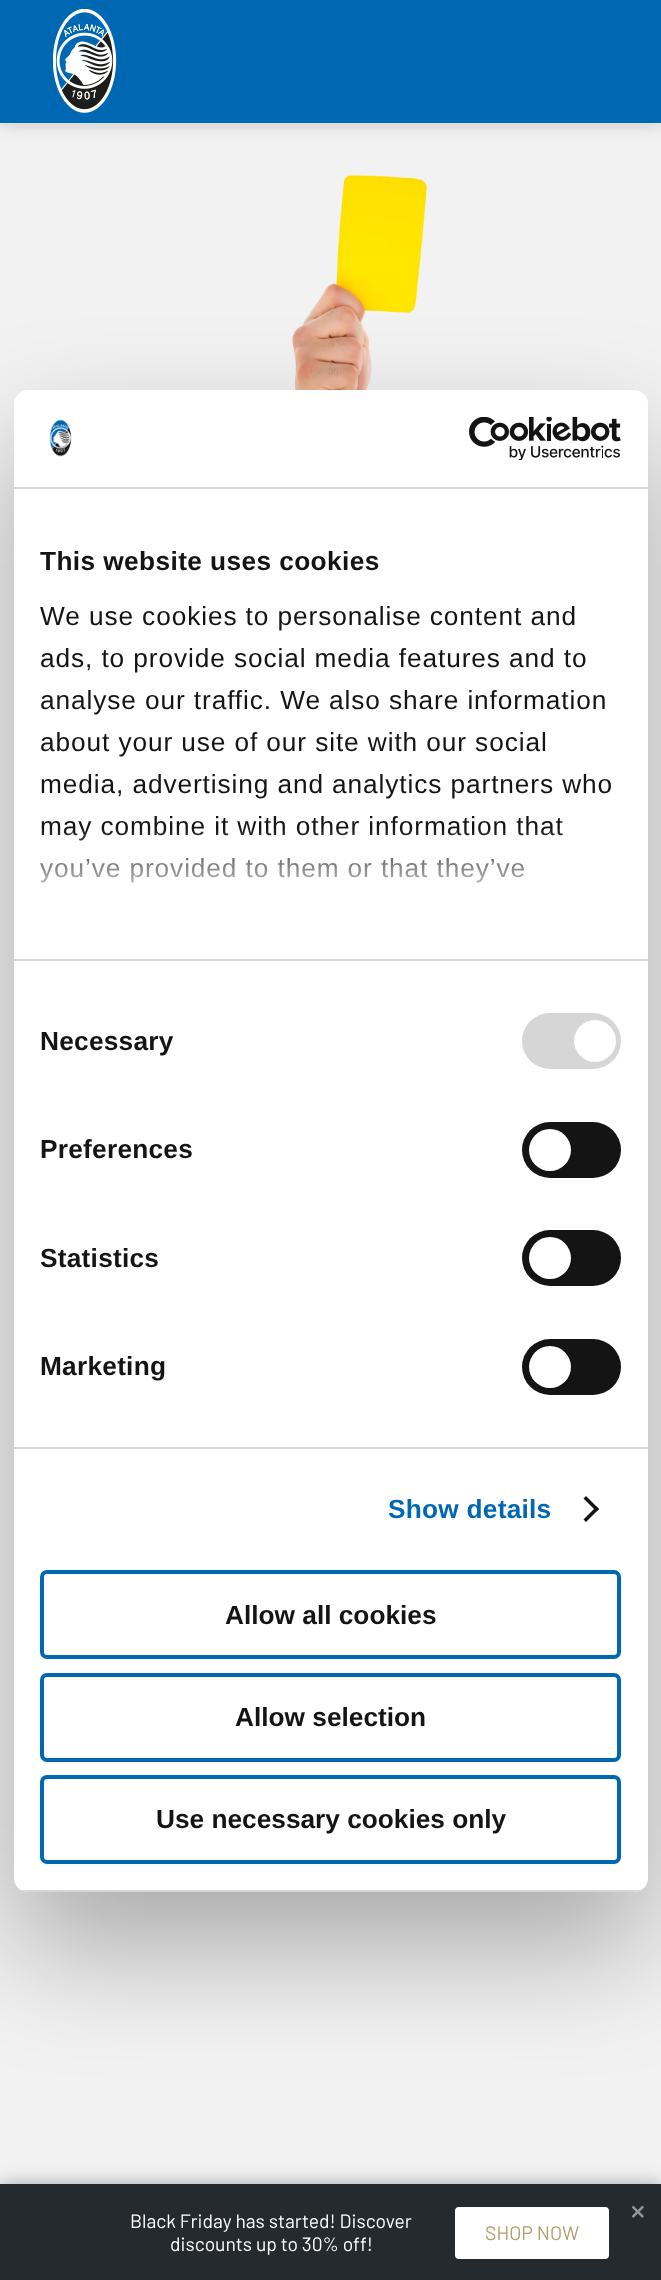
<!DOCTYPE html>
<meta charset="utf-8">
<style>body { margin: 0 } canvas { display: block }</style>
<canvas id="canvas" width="661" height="2280"></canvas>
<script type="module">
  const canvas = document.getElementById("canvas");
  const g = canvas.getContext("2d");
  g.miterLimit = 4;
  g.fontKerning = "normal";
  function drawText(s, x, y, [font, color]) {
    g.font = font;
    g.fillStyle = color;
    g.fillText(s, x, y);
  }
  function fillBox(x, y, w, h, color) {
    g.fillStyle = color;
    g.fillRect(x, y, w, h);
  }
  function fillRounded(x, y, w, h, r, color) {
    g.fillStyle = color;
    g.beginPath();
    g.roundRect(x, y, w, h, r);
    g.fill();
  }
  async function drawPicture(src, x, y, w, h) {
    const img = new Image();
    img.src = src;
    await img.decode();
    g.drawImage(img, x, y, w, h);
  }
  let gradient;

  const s1 = ["bold 26.25px Liberation Sans", "#141414"];
  const s2 = ["26.25px Liberation Sans", "#141414"];
  const s3 = ["bold 26.25px Liberation Sans", "#0067B2"];
  const s4 = ["19.25px Barlow", "#FFFFFF"];
  const s5 = ["19.5px Barlow", "#B19F6D"];

  fillBox(0, 0, 661, 2280, "#F2F2F2");
  g.fillStyle = "rgba(0, 0, 0, 0.2)";
  g.filter = "blur(9px)";
  g.beginPath();
  g.rect(0, 0, 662, 123);
  g.fill();
  g.filter = "none";
  fillBox(0, 0, 661, 123, "#0067B2");
  await drawPicture("pic1.png", 53, 9, 64, 104);
  await drawPicture("pic2.png", 292, 175, 135, 215);
  g.fillStyle = "rgba(0, 0, 0, 0.3)";
  g.filter = "blur(59.5px)";
  g.beginPath();
  g.roundRect(14, 446, 634, 1502, 14);
  g.fill();
  g.filter = "none";
  fillRounded(14, 390, 634, 1502, 14, "#FFFFFF");
  fillBox(14, 487, 634, 2, "#D6D6D6");
  await drawPicture("pic3.png", 49, 419, 23, 38);
  await drawPicture("pic4.png", 469, 417, 152, 43);
  fillBox(14, 959, 634, 2, "#D6D6D6");
  g.letterSpacing = "0.4px";
  drawText("This website uses cookies", 40, 570, s1);
  g.letterSpacing = "0.9px";
  drawText("We use cookies to personalise content and", 40, 625, s2);
  drawText("ads, to provide social media features and to", 40, 667, s2);
  drawText("analyse our traffic. We also share information", 40, 709, s2);
  drawText("about your use of our site with our social", 40, 751, s2);
  drawText("media, advertising and analytics partners who", 40, 793, s2);
  drawText("may combine it with other information that", 40, 835, s2);
  drawText("you’ve provided to them or that they’ve", 40, 877, s2);
  gradient = g.createLinearGradient(319, 959, 319, 827);
  gradient.addColorStop(0, "#FFFFFF");
  gradient.addColorStop(0.5, "rgba(255, 255, 255, 0.8)");
  gradient.addColorStop(1, "rgba(255, 255, 255, 0)");
  g.fillStyle = gradient;
  g.fillRect(40, 829, 522, 54);
  fillBox(14, 1447, 634, 2, "#D6D6D6");
  g.letterSpacing = "0.25px";
  drawText("Necessary", 40, 1050, s1);
  fillRounded(522, 1013, 99, 56, 28, "#D6D6D6");
  g.fillStyle = "#FFFFFF";
  g.beginPath();
  g.arc(595, 1041, 21, 0, Math.PI * 2);
  g.fill();
  drawText("Preferences", 40, 1158, s1);
  fillRounded(522, 1122, 99, 56, 28, "#141414");
  g.fillStyle = "#FFFFFF";
  g.beginPath();
  g.arc(550, 1150, 21, 0, Math.PI * 2);
  g.fill();
  drawText("Statistics", 40, 1267, s1);
  fillRounded(522, 1230, 99, 56, 28, "#141414");
  g.fillStyle = "#FFFFFF";
  g.beginPath();
  g.arc(550, 1258, 21, 0, Math.PI * 2);
  g.fill();
  drawText("Marketing", 40, 1375, s1);
  fillRounded(522, 1339, 99, 56, 28, "#141414");
  g.fillStyle = "#FFFFFF";
  g.beginPath();
  g.arc(550, 1367, 21, 0, Math.PI * 2);
  g.fill();
  drawText("Show details", 388, 1518, s3);
  g.fillStyle = "#141414";
  g.beginPath();
  g.moveTo(586, 1496);
  g.lineTo(599, 1509);
  g.lineTo(596.5, 1511.5);
  g.lineTo(583.5, 1498.5);
  g.closePath();
  g.fill();
  g.beginPath();
  g.moveTo(596.5, 1506.5);
  g.lineTo(599, 1509);
  g.lineTo(586, 1522);
  g.lineTo(583.5, 1519.5);
  g.closePath();
  g.fill();
  g.save();
  g.beginPath();
  g.roundRect(14, 390, 634, 1502, 14);
  g.clip();
  fillBox(14, 1890, 634, 2, "#D6D6D6");
  g.restore();
  g.beginPath();
  g.roundRect(42, 1572, 577, 85, 5);
  g.strokeStyle = "#0067B2";
  g.lineWidth = 4;
  g.stroke();
  g.letterSpacing = "0px";
  drawText("Allow all cookies", 225, 1624, s1);
  g.beginPath();
  g.roundRect(42, 1675, 577, 85, 5);
  g.stroke();
  drawText("Allow selection", 235, 1726, s1);
  g.beginPath();
  g.roundRect(42, 1777, 577, 85, 5);
  g.stroke();
  drawText("Use necessary cookies only", 156, 1828, s1);
  g.fillStyle = "rgba(0, 0, 0, 0.3)";
  g.filter = "blur(9px)";
  g.beginPath();
  g.rect(0, 2184, 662, 96);
  g.fill();
  g.filter = "none";
  fillBox(0, 2184, 661, 96, "#252A2E");
  await drawPicture("pic5.png", 631, 2205, 13, 13);
  drawText("Black Friday has started! Discover", 130, 2228, s4);
  drawText("discounts up to 30% off!", 170, 2251, s4);
  g.beginPath();
  g.roundRect(457, 2209, 150, 48, 2);
  g.fill();
  g.strokeStyle = "#FFFFFF";
  g.stroke();
  drawText("SHOP NOW", 485, 2240, s5);
</script>
